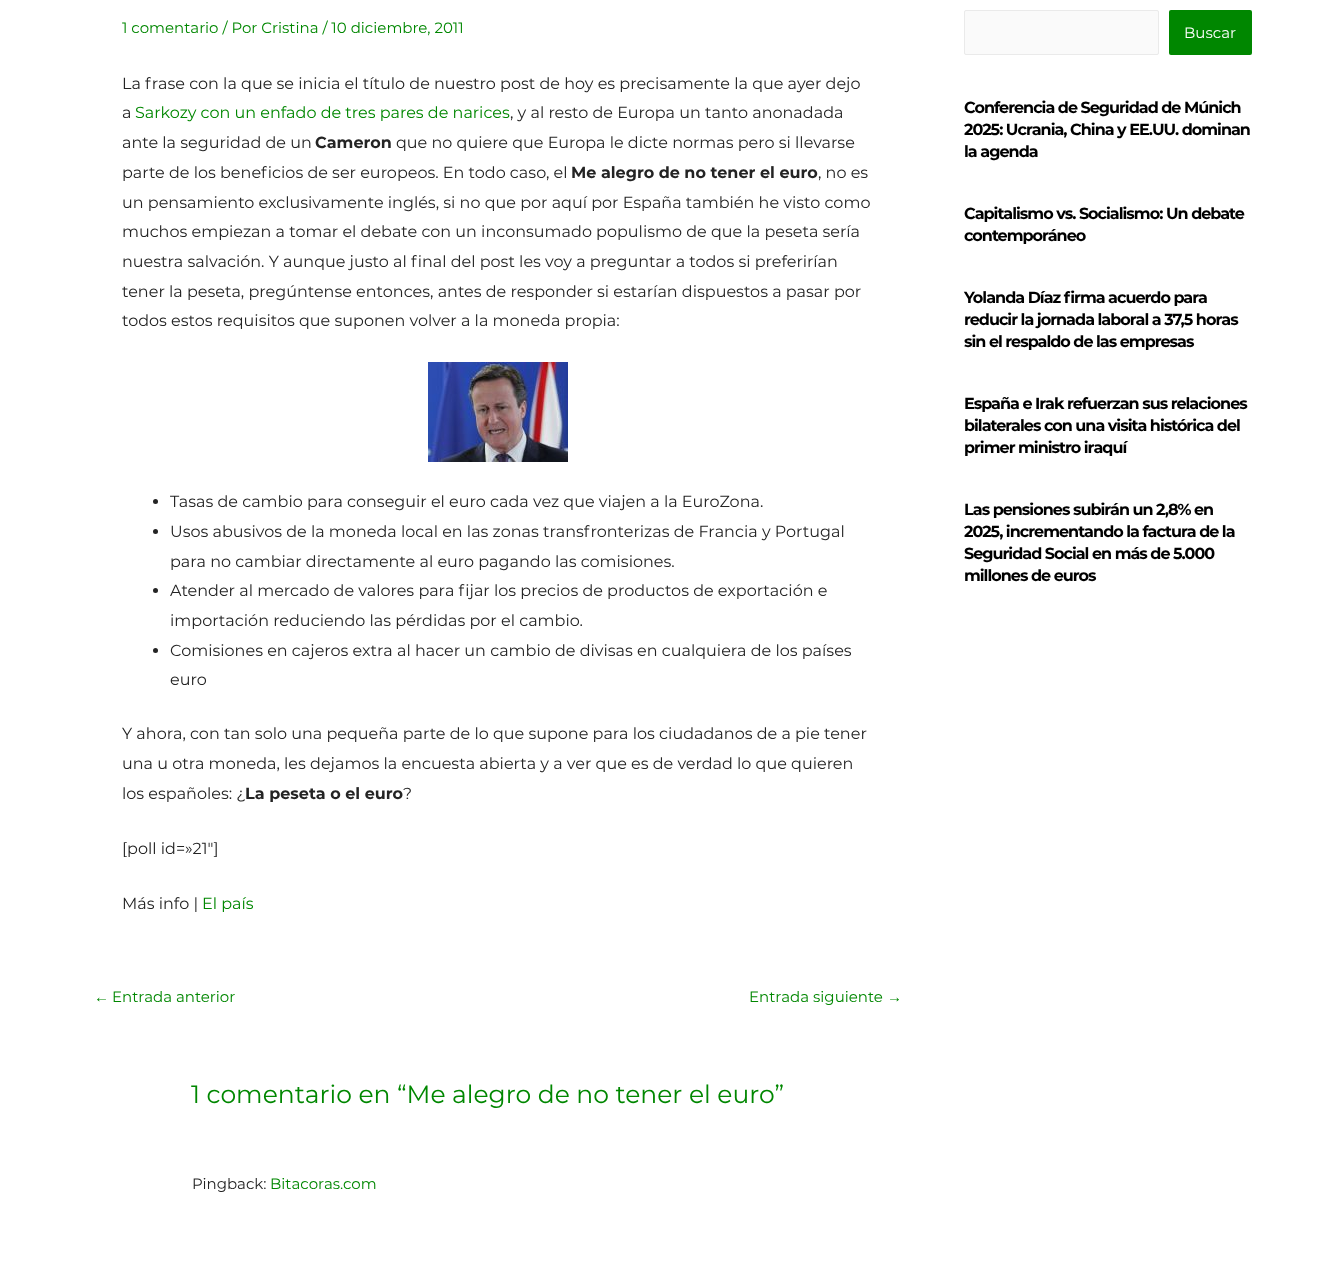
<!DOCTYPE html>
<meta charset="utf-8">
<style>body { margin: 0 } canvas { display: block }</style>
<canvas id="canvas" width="1343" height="1273"></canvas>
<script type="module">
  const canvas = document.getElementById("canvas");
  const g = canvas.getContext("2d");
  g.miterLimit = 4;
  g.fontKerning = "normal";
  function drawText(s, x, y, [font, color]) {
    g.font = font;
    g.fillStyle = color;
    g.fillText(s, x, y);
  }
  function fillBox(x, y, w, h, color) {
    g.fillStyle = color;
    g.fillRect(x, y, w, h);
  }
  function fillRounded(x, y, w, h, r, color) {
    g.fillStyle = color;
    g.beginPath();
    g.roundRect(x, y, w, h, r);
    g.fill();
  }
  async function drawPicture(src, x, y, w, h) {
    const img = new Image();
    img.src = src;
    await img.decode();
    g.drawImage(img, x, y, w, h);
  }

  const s1 = ["15px Montserrat", "#008700"];
  const s2 = ["16px Montserrat", "#242424"];
  const s3 = ["16px Montserrat", "#008700"];
  const s4 = ["bold 16px Montserrat", "#242424"];
  const s5 = ["15px Liberation Sans", "#008700"];
  const s6 = ["25px Montserrat", "#008700"];
  const s7 = ["15px Montserrat", "#242424"];
  const s8 = ["15px Montserrat", "#FFFFFF"];
  const s9 = ["bold 16px Montserrat", "#000000"];

  fillBox(0, 0, 1343, 1273, "#FFFFFF");
  drawText("1 comentario / Por Cristina / 10 diciembre, 2011", 122, 33, s1);
  drawText("La frase con la que se inicia el título de nuestro post de hoy es precisamente la que ayer dejo", 122, 89, s2);
  drawText("a", 122, 118, s2);
  drawText("Sarkozy con un enfado de tres pares de narices", 135, 118, s3);
  drawText(", y al resto de Europa un tanto anonadada", 510, 118, s2);
  drawText("ante la seguridad de un", 122, 148, s2);
  drawText("Cameron", 315, 148, s4);
  drawText("que no quiere que Europa le dicte normas pero si llevarse", 396, 148, s2);
  drawText("parte de los beneficios de ser europeos. En todo caso, el", 122, 178, s2);
  drawText("Me alegro de no tener el euro", 571, 178, s4);
  drawText(", no es", 818, 178, s2);
  drawText("un pensamiento exclusivamente inglés, si no que por aquí por España también he visto como", 122, 208, s2);
  drawText("muchos empiezan a tomar el debate con un inconsumado populismo de que la peseta sería", 122, 237, s2);
  drawText("nuestra salvación. Y aunque justo al final del post les voy a preguntar a todos si preferirían", 122, 267, s2);
  drawText("tener la peseta, pregúntense entonces, antes de responder si estarían dispuestos a pasar por", 122, 297, s2);
  drawText("todos estos requisitos que suponen volver a la moneda propia:", 122, 326, s2);
  await drawPicture("pic1.png", 428, 362, 140, 100);
  g.beginPath();
  g.arc(155.5, 501.5, 2.5, 0, Math.PI * 2);
  g.fill();
  drawText("Tasas de cambio para conseguir el euro cada vez que viajen a la EuroZona.", 170, 507, s2);
  g.beginPath();
  g.arc(155.5, 531.5, 2.5, 0, Math.PI * 2);
  g.fill();
  drawText("Usos abusivos de la moneda local en las zonas transfronterizas de Francia y Portugal", 170, 537, s2);
  drawText("para no cambiar directamente al euro pagando las comisiones.", 170, 567, s2);
  g.beginPath();
  g.arc(155.5, 590.5, 2.5, 0, Math.PI * 2);
  g.fill();
  drawText("Atender al mercado de valores para fijar los precios de productos de exportación e", 170, 596, s2);
  drawText("importación reduciendo las pérdidas por el cambio.", 170, 626, s2);
  g.beginPath();
  g.arc(155.5, 650.5, 2.5, 0, Math.PI * 2);
  g.fill();
  drawText("Comisiones en cajeros extra al hacer un cambio de divisas en cualquiera de los países", 170, 656, s2);
  drawText("euro", 170, 685, s2);
  drawText("Y ahora, con tan solo una pequeña parte de lo que supone para los ciudadanos de a pie tener", 122, 739, s2);
  drawText("una u otra moneda, les dejamos la encuesta abierta y a ver que es de verdad lo que quieren", 122, 769, s2);
  drawText("los españoles: ¿", 122, 799, s2);
  drawText("La peseta o el euro", 245, 799, s4);
  drawText("?", 403, 799, s2);
  drawText("[poll id=»21″]", 122, 854, s2);
  drawText("Más info |", 122, 909, s2);
  drawText("El país", 202, 909, s3);
  drawText("←", 94, 1002, s5);
  drawText("Entrada anterior", 112, 1002, s1);
  drawText("Entrada siguiente", 749, 1002, s1);
  drawText("→", 887, 1002, s5);
  drawText("1 comentario en “Me alegro de no tener el euro”", 191, 1103, s6);
  drawText("Pingback:", 192, 1189, s7);
  drawText("Bitacoras.com", 270, 1189, s1);
  g.fillStyle = "#FAFAFA";
  g.beginPath();
  g.roundRect(964.5, 10.5, 194, 44, 1.5);
  g.fill();
  g.strokeStyle = "#EAEAEA";
  g.stroke();
  fillRounded(1169, 10, 83, 45, 2, "#008700");
  drawText("Buscar", 1184, 38, s8);
  g.letterSpacing = "-1px";
  drawText("Conferencia de Seguridad de Múnich", 964, 113, s9);
  drawText("2025: Ucrania, China y EE.UU. dominan", 964, 135, s9);
  drawText("la agenda", 964, 157, s9);
  drawText("Capitalismo vs. Socialismo: Un debate", 964, 219, s9);
  drawText("contemporáneo", 964, 241, s9);
  drawText("Yolanda Díaz firma acuerdo para", 964, 303, s9);
  drawText("reducir la jornada laboral a 37,5 horas", 964, 325, s9);
  drawText("sin el respaldo de las empresas", 964, 347, s9);
  drawText("España e Irak refuerzan sus relaciones", 964, 409, s9);
  drawText("bilaterales con una visita histórica del", 964, 431, s9);
  drawText("primer ministro iraquí", 964, 453, s9);
  drawText("Las pensiones subirán un 2,8% en", 964, 515, s9);
  drawText("2025, incrementando la factura de la", 964, 537, s9);
  drawText("Seguridad Social en más de 5.000", 964, 559, s9);
  drawText("millones de euros", 964, 581, s9);
</script>
